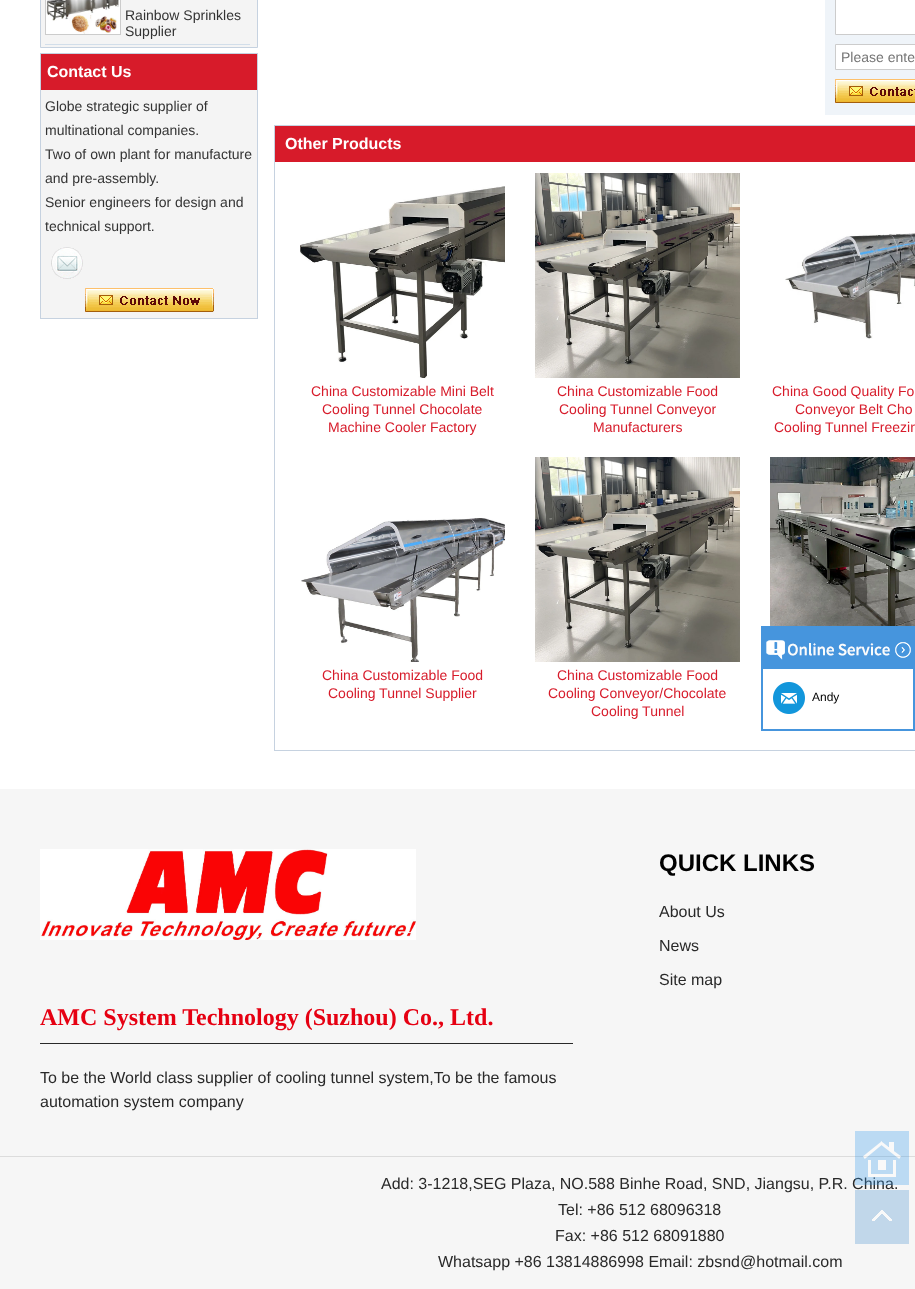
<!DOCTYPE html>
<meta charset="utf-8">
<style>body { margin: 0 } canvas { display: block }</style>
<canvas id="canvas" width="915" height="1289"></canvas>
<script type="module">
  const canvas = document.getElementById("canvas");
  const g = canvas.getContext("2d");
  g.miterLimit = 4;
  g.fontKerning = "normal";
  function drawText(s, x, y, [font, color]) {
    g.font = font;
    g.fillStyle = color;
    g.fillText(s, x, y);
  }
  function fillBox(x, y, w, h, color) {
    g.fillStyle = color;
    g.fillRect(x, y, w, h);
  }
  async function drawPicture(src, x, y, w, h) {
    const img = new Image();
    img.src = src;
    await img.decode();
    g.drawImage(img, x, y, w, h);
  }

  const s1 = ["14px Liberation Sans", "#333333"];
  const s2 = ["bold 16px Liberation Sans", "#FFFFFF"];
  const s3 = ["14px Liberation Sans", "#757575"];
  const s4 = ["14px Liberation Sans", "#D71B2A"];
  const s5 = ["12px Liberation Sans", "#000000"];
  const s6 = ["bold 24px Liberation Sans", "#000000"];
  const s7 = ["16px Liberation Sans", "#292929"];
  const s8 = ["bold 24px Liberation Serif", "#E60012"];

  fillBox(0, 0, 915, 1289, "#FFFFFF");
  g.fillStyle = "#F4F4F4";
  g.beginPath();
  g.rect(40.5, -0.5, 217, 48);
  g.fill();
  g.strokeStyle = "#C6D2E0";
  g.stroke();
  fillBox(45, 44, 205, 1, "#D2DEEA");
  g.strokeStyle = "#CCCCCC";
  g.strokeRect(45.5, -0.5, 75, 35);
  await drawPicture("pic1.png", 46, 0, 74, 34);
  drawText("Rainbow Sprinkles", 125, 20, s1);
  drawText("Supplier", 125, 36, s1);
  fillBox(41, 90, 216, 228, "#F4F4F4");
  g.strokeStyle = "#C6D2E0";
  g.strokeRect(40.5, 53.5, 217, 265);
  fillBox(41, 54, 216, 36, "#D71B2A");
  drawText("Contact Us", 47, 77, s2);
  drawText("Globe strategic supplier of", 45, 111, s1);
  drawText("multinational companies.", 45, 135, s1);
  drawText("Two of own plant for manufacture", 45, 159, s1);
  drawText("and pre-assembly.", 45, 183, s1);
  drawText("Senior engineers for design and", 45, 207, s1);
  drawText("technical support.", 45, 231, s1);
  await drawPicture("pic2.png", 51, 247, 32, 32);
  await drawPicture("pic3.png", 85, 288, 129, 24);
  fillBox(825, 0, 90, 115, "#EFF4F9");
  g.fillStyle = "#FFFFFF";
  g.beginPath();
  g.rect(835.5, -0.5, 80, 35);
  g.fill();
  g.strokeStyle = "#CCCCCC";
  g.stroke();
  g.beginPath();
  g.rect(835.5, 44.5, 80, 25);
  g.fill();
  g.stroke();
  drawText("Please ente", 841, 62, s3);
  await drawPicture("pic4.png", 835, 79, 80, 24);
  g.strokeStyle = "#C6D2E0";
  g.strokeRect(274.5, 125.5, 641, 625);
  fillBox(275, 126, 640, 36, "#D71B2A");
  drawText("Other Products", 285, 149, s2);
  await drawPicture("pic5.png", 300, 186, 205, 192);
  drawText("China Customizable Mini Belt", 311, 396, s4);
  drawText("Cooling Tunnel Chocolate", 322, 414, s4);
  drawText("Machine Cooler Factory", 328, 432, s4);
  await drawPicture("pic6.png", 535, 173, 205, 205);
  drawText("China Customizable Food", 557, 396, s4);
  drawText("Cooling Tunnel Conveyor", 559, 414, s4);
  drawText("Manufacturers", 593, 432, s4);
  await drawPicture("pic7.png", 785, 233, 130, 106);
  drawText("China Good Quality Fo", 772, 396, s4);
  drawText("Conveyor Belt Cho", 795, 414, s4);
  drawText("Cooling Tunnel Freezin", 774, 432, s4);
  await drawPicture("pic8.png", 770, 457, 145, 169);
  await drawPicture("pic9.png", 301, 518, 204, 144);
  drawText("China Customizable Food", 322, 680, s4);
  drawText("Cooling Tunnel Supplier", 328, 698, s4);
  await drawPicture("pic6.png", 535, 457, 205, 205);
  drawText("China Customizable Food", 557, 680, s4);
  drawText("Cooling Conveyor/Chocolate", 548, 698, s4);
  drawText("Cooling Tunnel", 591, 716, s4);
  await drawPicture("pic10.png", 761, 626, 154, 46);
  await drawPicture("pic11.png", 895, 642, 16, 16);
  await drawPicture("pic12.png", 761, 672, 154, 51);
  await drawPicture("pic13.png", 773, 682, 32, 32);
  drawText("Andy", 812, 701, s5);
  await drawPicture("pic14.png", 761, 723, 154, 8);
  fillBox(0, 789, 915, 500, "#F6F6F6");
  drawText("QUICK LINKS", 659, 871, s6);
  drawText("About Us", 659, 917, s7);
  drawText("News", 659, 951, s7);
  drawText("Site map", 659, 985, s7);
  await drawPicture("pic15.png", 40, 849, 376, 91);
  fillBox(40, 1043, 533, 1, "#292929");
  drawText("AMC System Technology (Suzhou) Co., Ltd.", 40, 1025, s8);
  drawText("To be the World class supplier of cooling tunnel system,To be the famous", 40, 1083, s7);
  drawText("automation system company", 40, 1107, s7);
  fillBox(0, 1156, 915, 1, "#DCDCDC");
  drawText("Add: 3-1218,SEG Plaza, NO.588 Binhe Road, SND, Jiangsu, P.R. China.", 381, 1189, s7);
  drawText("Tel: +86 512 68096318", 558, 1215, s7);
  drawText("Fax: +86 512 68091880", 555, 1241, s7);
  drawText("Whatsapp +86 13814886998 Email: zbsnd@hotmail.com", 438, 1267, s7);
  await drawPicture("pic16.png", 855, 1131, 54, 54);
  await drawPicture("pic17.png", 855, 1190, 54, 54);
</script>
